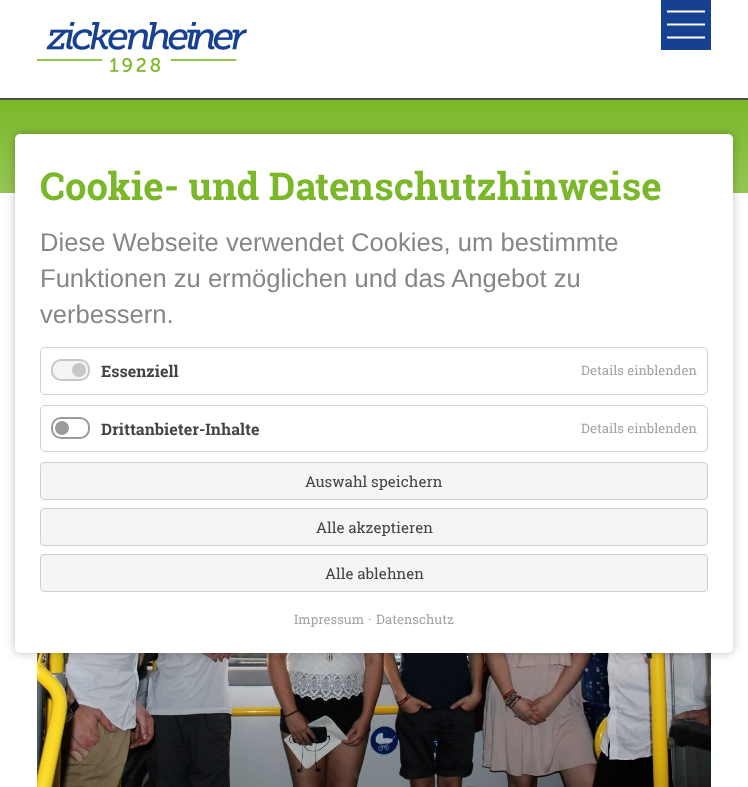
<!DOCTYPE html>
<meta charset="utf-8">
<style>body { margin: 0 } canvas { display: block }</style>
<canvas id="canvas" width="748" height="787"></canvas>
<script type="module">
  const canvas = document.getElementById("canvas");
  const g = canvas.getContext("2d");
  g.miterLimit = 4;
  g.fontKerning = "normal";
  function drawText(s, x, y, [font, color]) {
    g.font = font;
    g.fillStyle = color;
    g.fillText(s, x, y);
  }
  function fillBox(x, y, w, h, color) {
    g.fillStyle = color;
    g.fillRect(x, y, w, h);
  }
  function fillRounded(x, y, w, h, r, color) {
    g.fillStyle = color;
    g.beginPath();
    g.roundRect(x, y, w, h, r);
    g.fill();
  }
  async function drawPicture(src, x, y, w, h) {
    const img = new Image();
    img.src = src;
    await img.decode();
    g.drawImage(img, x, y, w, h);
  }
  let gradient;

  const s1 = ["bold 38.4px Roboto Slab", "#7AB829"];
  const s2 = ["25.6px Arimo", "#868686"];
  const s3 = ["bold 16px Roboto Slab", "#444444"];
  const s4 = ["13px Roboto Slab", "#A2A2A2"];
  const s5 = ["15px Roboto Slab", "#444444"];

  fillBox(0, 0, 748, 787, "#FFFFFF");
  await drawPicture("pic1.png", 37, 22, 210, 50);
  await drawPicture("pic2.png", 661, 0, 50, 50);
  gradient = g.createLinearGradient(374, 193, 374, 100);
  gradient.addColorStop(0, "#95C654");
  gradient.addColorStop(1, "#7AB829");
  g.fillStyle = gradient;
  g.fillRect(0, 100, 748, 93);
  fillBox(0, 98, 748, 2, "#4D4D4D");
  await drawPicture("pic3.png", 37, 653, 674, 134);
  g.fillStyle = "rgba(0, 0, 0, 0.25)";
  g.filter = "blur(5px)";
  g.beginPath();
  g.roundRect(15, 134, 718, 519, 5);
  g.fill();
  g.filter = "none";
  fillRounded(15, 134, 718, 519, 5, "#FFFFFF");
  drawText("Cookie- und Datenschutzhinweise", 40, 200, s1);
  drawText("Diese Webseite verwendet Cookies, um bestimmte", 40, 251, s2);
  drawText("Funktionen zu ermöglichen und das Angebot zu", 40, 287, s2);
  drawText("verbessern.", 40, 323, s2);
  g.beginPath();
  g.roundRect(40.5, 347.5, 667, 47, 4.5);
  g.strokeStyle = "#D0D0D0";
  g.stroke();
  g.fillStyle = "#F4F4F4";
  g.beginPath();
  g.roundRect(52, 360, 37, 20, 9);
  g.fill();
  g.strokeStyle = "#C8C7C5";
  g.lineWidth = 2;
  g.stroke();
  g.fillStyle = "#C8C7C5";
  g.beginPath();
  g.arc(79, 370, 7, 0, Math.PI * 2);
  g.fill();
  drawText("Essenziell", 101, 377, s3);
  drawText("Details einblenden", 581, 375, s4);
  g.beginPath();
  g.roundRect(40.5, 405.5, 667, 46, 4.5);
  g.strokeStyle = "#D0D0D0";
  g.lineWidth = 1;
  g.stroke();
  g.beginPath();
  g.roundRect(52, 418, 37, 20, 9);
  g.strokeStyle = "#9C9B99";
  g.lineWidth = 2;
  g.stroke();
  g.fillStyle = "#9C9B99";
  g.beginPath();
  g.arc(62, 428, 7, 0, Math.PI * 2);
  g.fill();
  drawText("Drittanbieter-Inhalte", 101, 435, s3);
  drawText("Details einblenden", 581, 433, s4);
  g.fillStyle = "#F5F5F5";
  g.beginPath();
  g.roundRect(40.5, 462.5, 667, 37, 3.5);
  g.fill();
  g.strokeStyle = "#CFCFCF";
  g.lineWidth = 1;
  g.stroke();
  drawText("Auswahl speichern", 305, 487, s5);
  g.fillStyle = "#F5F5F5";
  g.beginPath();
  g.roundRect(40.5, 508.5, 667, 37, 3.5);
  g.fill();
  g.stroke();
  drawText("Alle akzeptieren", 316, 533, s5);
  g.fillStyle = "#F5F5F5";
  g.beginPath();
  g.roundRect(40.5, 554.5, 667, 37, 3.5);
  g.fill();
  g.stroke();
  drawText("Alle ablehnen", 325, 579, s5);
  drawText("Impressum", 294, 624, s4);
  drawText("·", 368, 624, s4);
  drawText("Datenschutz", 376, 624, s4);
</script>
